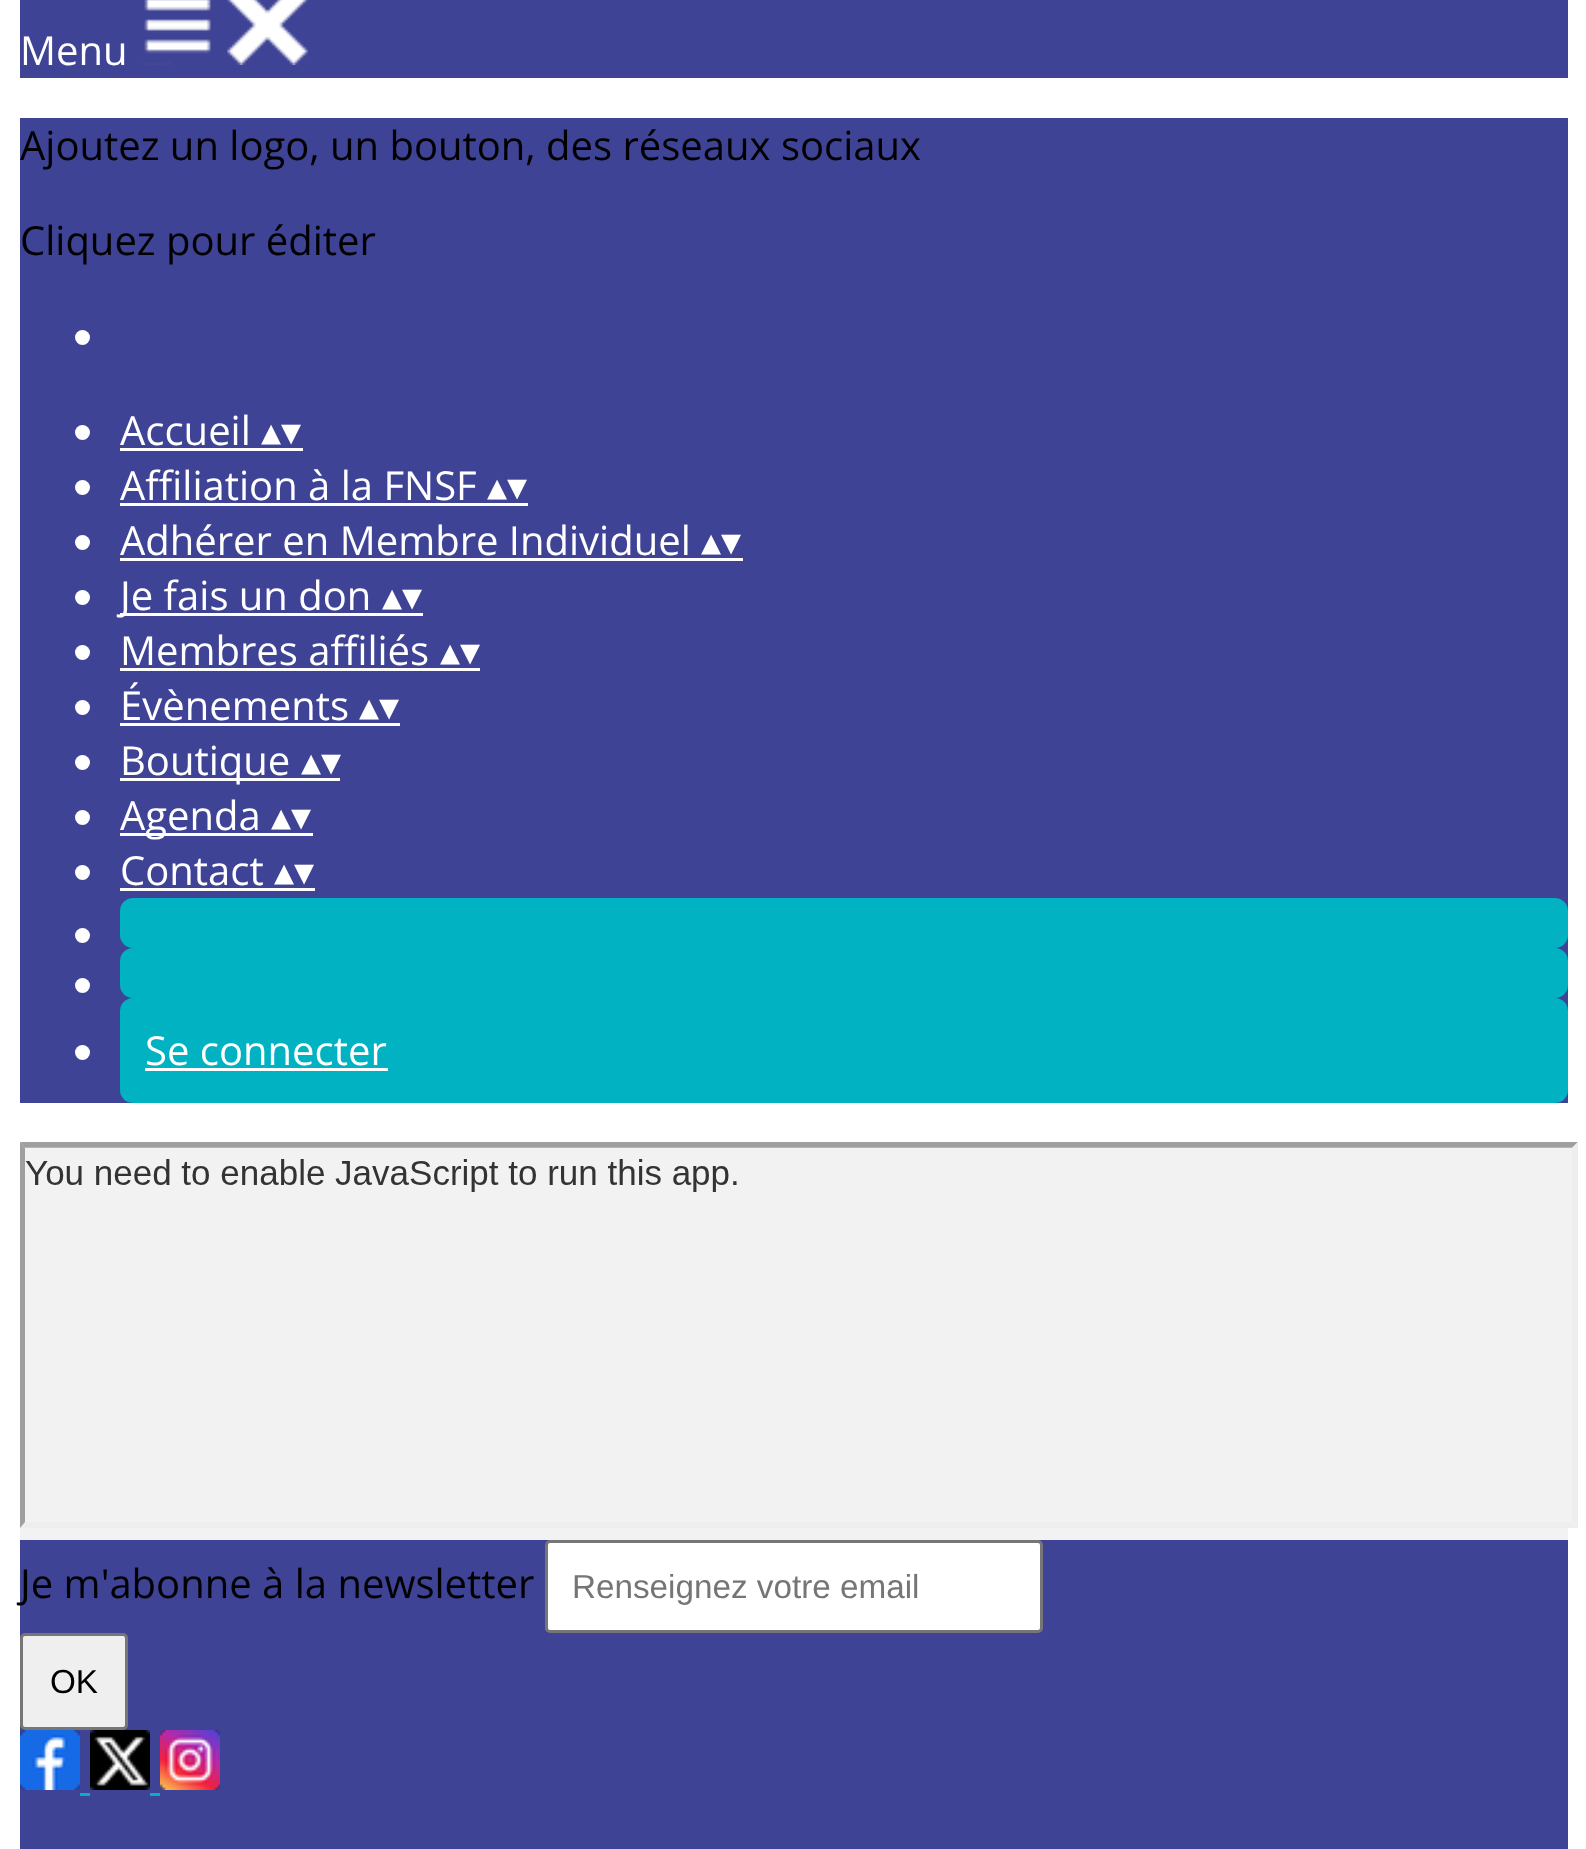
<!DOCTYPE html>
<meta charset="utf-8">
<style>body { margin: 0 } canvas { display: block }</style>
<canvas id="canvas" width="1586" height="1849"></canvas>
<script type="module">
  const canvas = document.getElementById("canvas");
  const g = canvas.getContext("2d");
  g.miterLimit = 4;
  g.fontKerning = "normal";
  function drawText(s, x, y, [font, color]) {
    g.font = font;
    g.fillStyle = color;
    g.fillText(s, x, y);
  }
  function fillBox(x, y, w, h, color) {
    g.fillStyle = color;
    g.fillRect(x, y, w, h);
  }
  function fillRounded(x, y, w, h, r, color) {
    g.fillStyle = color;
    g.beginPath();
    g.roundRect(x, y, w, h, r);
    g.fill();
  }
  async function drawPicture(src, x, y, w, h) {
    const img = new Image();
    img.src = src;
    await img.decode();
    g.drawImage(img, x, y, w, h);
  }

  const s1 = ["40px Open Sans", "#FFFFFF"];
  const s2 = ["40px Open Sans", "#000000"];
  const s3 = ["40px DejaVu Sans", "#FFFFFF"];
  const s4 = ["33.25px Liberation Sans", "#757575"];
  const s5 = ["33.25px Liberation Sans", "#000000"];

  fillBox(0, 0, 1586, 1849, "#FFFFFF");
  fillBox(20, 0, 1548, 78, "#3F4395");
  drawText("Menu", 20, 65, s1);
  await drawPicture("pic1.png", 143, 0, 68, 65);
  await drawPicture("pic2.png", 227, 0, 81, 65);
  fillBox(20, 118, 1548, 985, "#3F4395");
  drawText("Ajoutez un logo, un bouton, des réseaux sociaux", 20, 160, s2);
  drawText("Cliquez pour éditer", 20, 255, s2);
  g.fillStyle = "#FFFFFF";
  g.beginPath();
  g.arc(82.5, 337.5, 7.5, 0, Math.PI * 2);
  g.fill();
  g.beginPath();
  g.arc(82.5, 432.5, 7.5, 0, Math.PI * 2);
  g.fill();
  drawText("Accueil", 120, 445, s1);
  fillBox(120, 448, 183, 3, "#FFFFFF");
  drawText("▴▾", 261, 445, s3);
  g.beginPath();
  g.arc(82.5, 487.5, 7.5, 0, Math.PI * 2);
  g.fill();
  drawText("Affiliation à la FNSF", 120, 500, s1);
  fillBox(120, 503, 408, 3, "#FFFFFF");
  drawText("▴▾", 487, 500, s3);
  g.beginPath();
  g.arc(82.5, 542.5, 7.5, 0, Math.PI * 2);
  g.fill();
  drawText("Adhérer en Membre Individuel", 120, 555, s1);
  fillBox(120, 558, 623, 3, "#FFFFFF");
  drawText("▴▾", 701, 555, s3);
  g.beginPath();
  g.arc(82.5, 597.5, 7.5, 0, Math.PI * 2);
  g.fill();
  fillBox(120, 613, 303, 3, "#FFFFFF");
  drawText("Je fais un don", 120, 610, s1);
  drawText("▴▾", 382, 610, s3);
  g.beginPath();
  g.arc(82.5, 652.5, 7.5, 0, Math.PI * 2);
  g.fill();
  drawText("Membres affiliés", 120, 665, s1);
  fillBox(120, 668, 360, 3, "#FFFFFF");
  drawText("▴▾", 440, 665, s3);
  g.beginPath();
  g.arc(82.5, 707.5, 7.5, 0, Math.PI * 2);
  g.fill();
  drawText("Évènements", 120, 720, s1);
  fillBox(120, 723, 280, 3, "#FFFFFF");
  drawText("▴▾", 359, 720, s3);
  g.beginPath();
  g.arc(82.5, 762.5, 7.5, 0, Math.PI * 2);
  g.fill();
  fillBox(120, 778, 220, 3, "#FFFFFF");
  drawText("Boutique", 120, 775, s1);
  drawText("▴▾", 301, 775, s3);
  g.beginPath();
  g.arc(82.5, 817.5, 7.5, 0, Math.PI * 2);
  g.fill();
  fillBox(120, 833, 193, 3, "#FFFFFF");
  drawText("Agenda", 120, 830, s1);
  drawText("▴▾", 271, 830, s3);
  g.beginPath();
  g.arc(82.5, 872.5, 7.5, 0, Math.PI * 2);
  g.fill();
  drawText("Contact", 120, 885, s1);
  fillBox(120, 888, 195, 3, "#FFFFFF");
  drawText("▴▾", 274, 885, s3);
  g.beginPath();
  g.arc(82.5, 935.5, 7.5, 0, Math.PI * 2);
  g.fill();
  fillRounded(120, 898, 1448, 50, 13, "#00B2C2");
  g.fillStyle = "#FFFFFF";
  g.beginPath();
  g.arc(82.5, 985.5, 7.5, 0, Math.PI * 2);
  g.fill();
  fillRounded(120, 948, 1448, 50, 13, "#00B2C2");
  g.fillStyle = "#FFFFFF";
  g.beginPath();
  g.arc(82.5, 1052.5, 7.5, 0, Math.PI * 2);
  g.fill();
  fillRounded(120, 998, 1448, 105, 13, "#00B2C2");
  drawText("Se connecter", 145, 1065, s1);
  fillBox(145, 1068, 243, 3, "#FFFFFF");
  fillBox(20, 1143, 1548, 397, "#F2F2F2");
  g.fillStyle = "#9F9F9F";
  g.beginPath();
  g.moveTo(20, 1142);
  g.lineTo(1578, 1142);
  g.lineTo(1572, 1148);
  g.lineTo(25, 1148);
  g.closePath();
  g.fill();
  g.fillStyle = "#EEEEEE";
  g.beginPath();
  g.moveTo(1578, 1142);
  g.lineTo(1578, 1528);
  g.lineTo(1572, 1522);
  g.lineTo(1572, 1148);
  g.closePath();
  g.fill();
  g.beginPath();
  g.moveTo(1578, 1528);
  g.lineTo(20, 1528);
  g.lineTo(25, 1522);
  g.lineTo(1572, 1522);
  g.closePath();
  g.fill();
  g.fillStyle = "#9F9F9F";
  g.beginPath();
  g.moveTo(20, 1528);
  g.lineTo(20, 1142);
  g.lineTo(25, 1148);
  g.lineTo(25, 1522);
  g.closePath();
  g.fill();
  await drawPicture("pic3.png", 25, 1147, 1547, 375);
  fillBox(20, 1540, 1548, 309, "#3F4395");
  drawText("Je m'abonne à la newsletter", 20, 1598, s2);
  g.fillStyle = "#FFFFFF";
  g.beginPath();
  g.roundRect(546.5, 1541.5, 495, 90, 3.5);
  g.fill();
  g.strokeStyle = "#767676";
  g.lineWidth = 3;
  g.stroke();
  drawText("Renseignez votre email", 572, 1598, s4);
  g.fillStyle = "#EFEFEF";
  g.beginPath();
  g.roundRect(21.5, 1634.5, 105, 94, 3.5);
  g.fill();
  g.stroke();
  drawText("OK", 50, 1693, s5);
  await drawPicture("pic4.png", 20, 1730, 60, 60);
  await drawPicture("pic5.png", 90, 1730, 60, 60);
  await drawPicture("pic6.png", 160, 1730, 60, 60);
  fillBox(80, 1793, 10, 3, "#00B2C2");
  fillBox(150, 1793, 10, 3, "#00B2C2");
</script>
